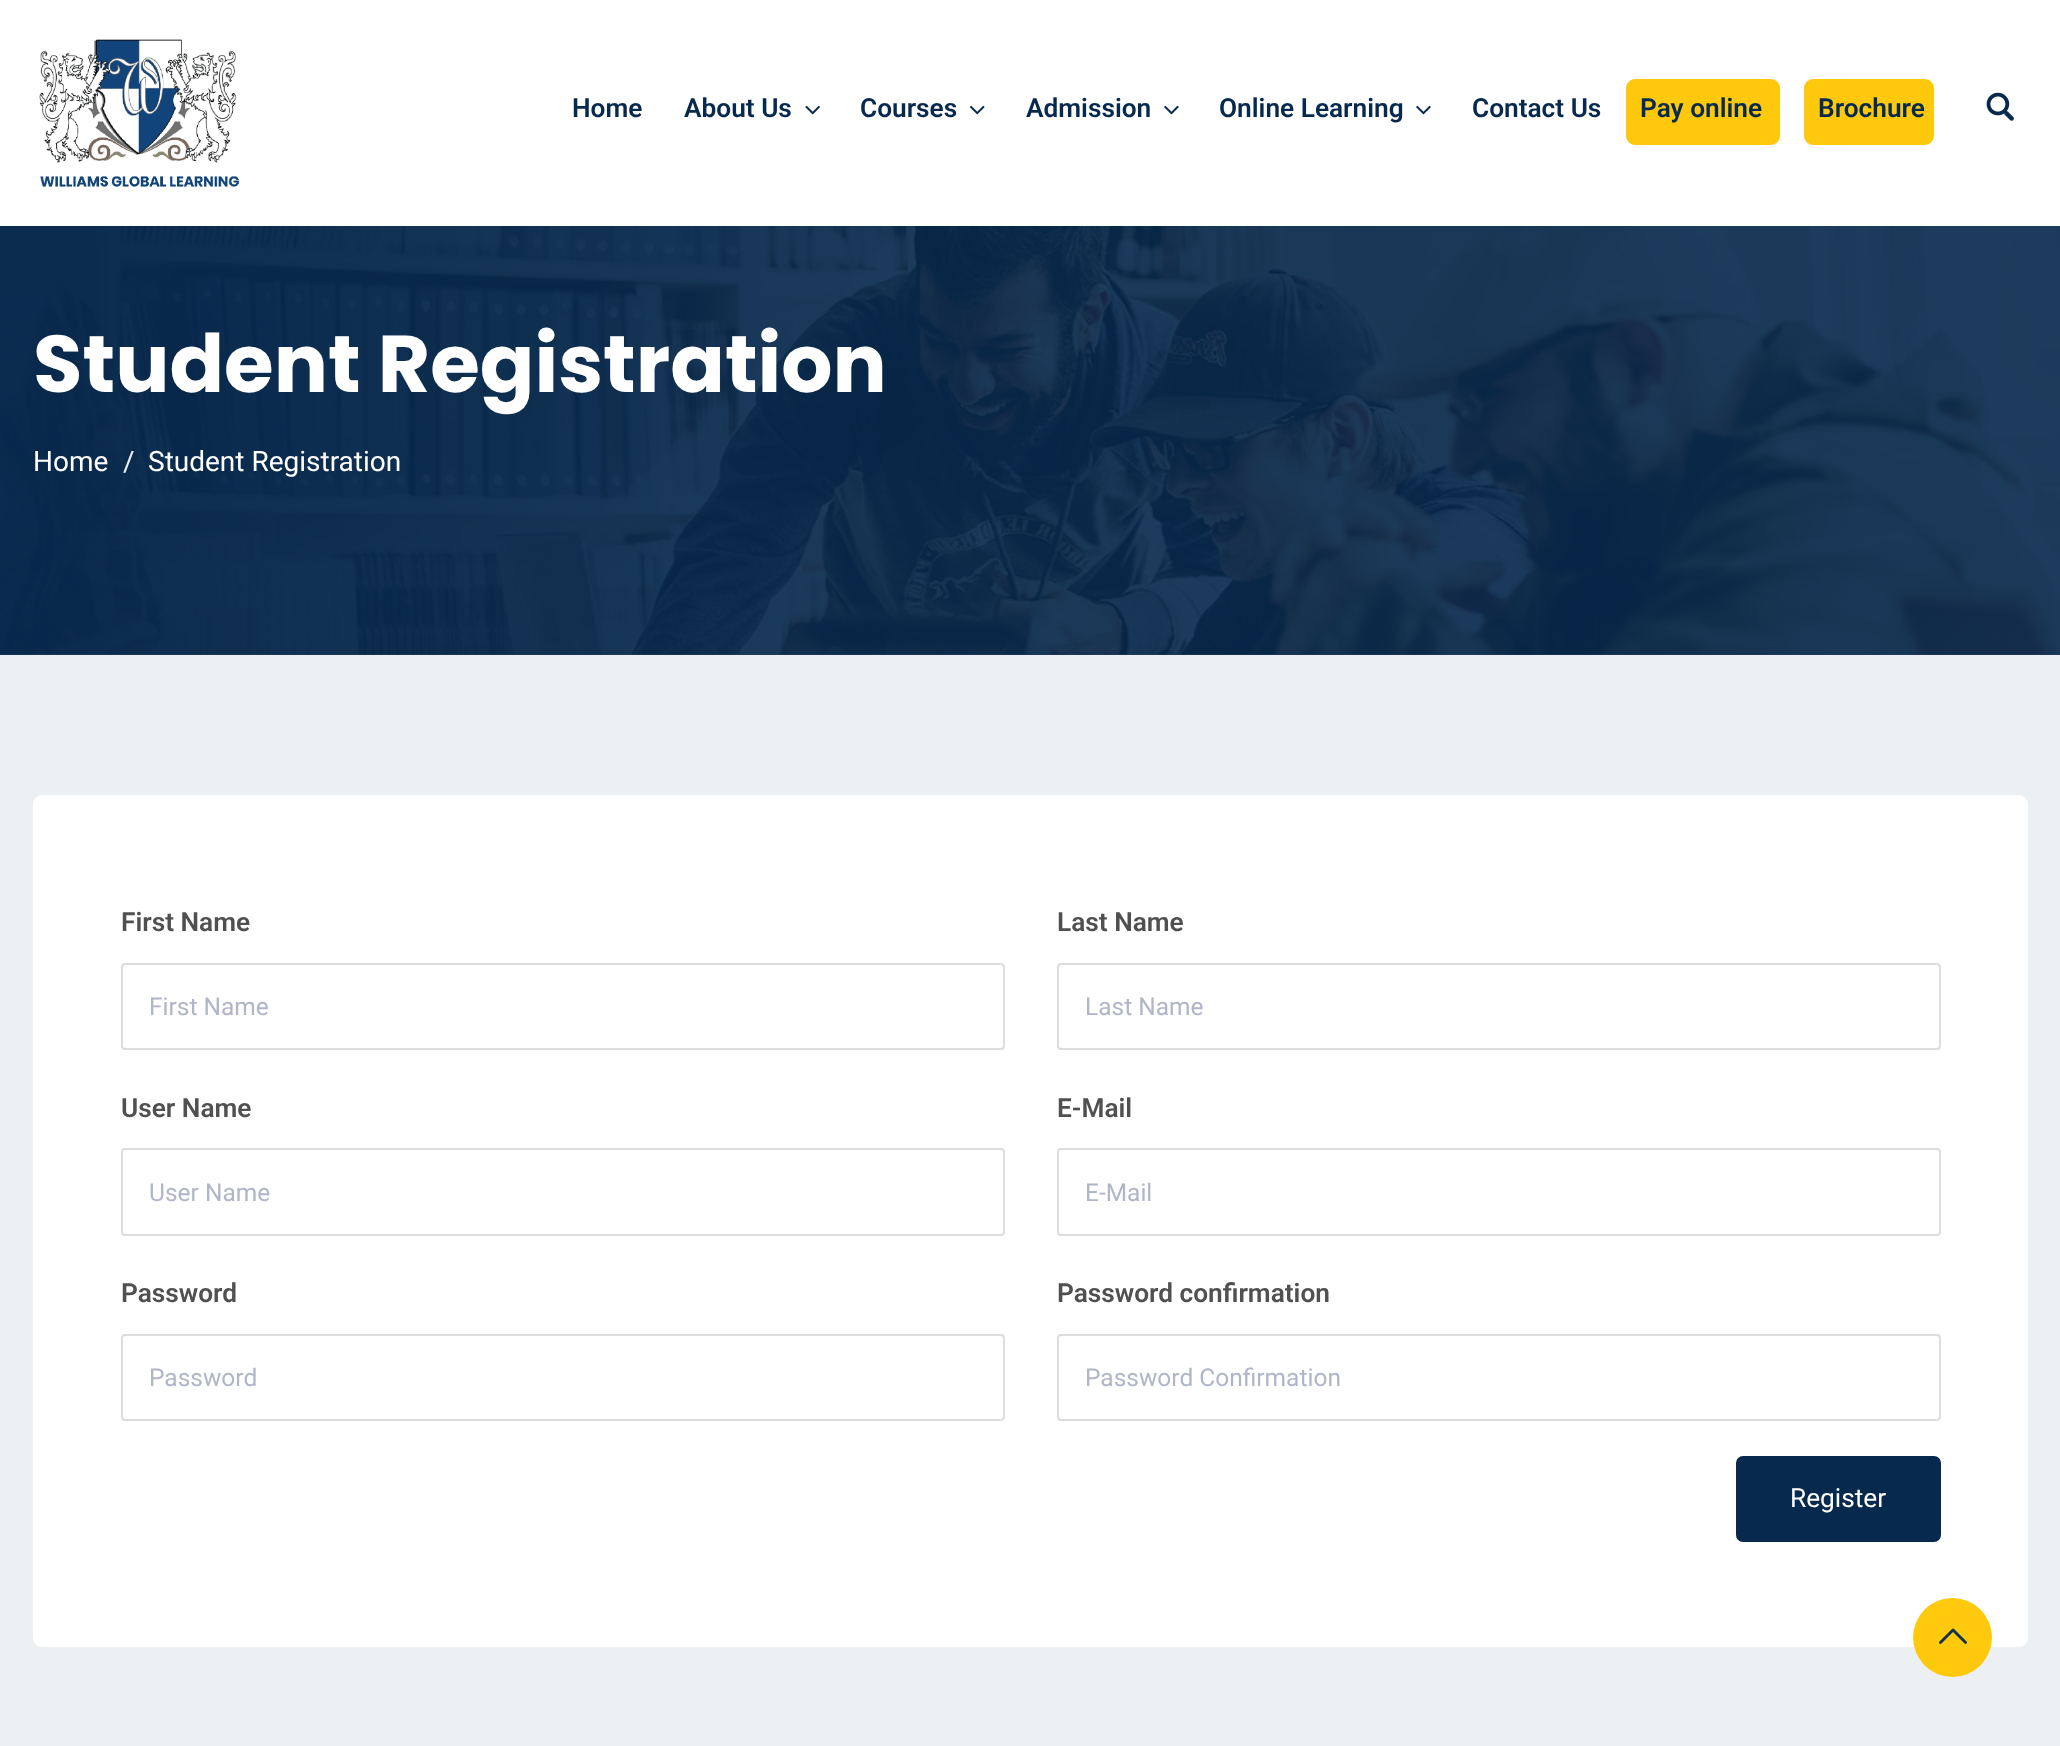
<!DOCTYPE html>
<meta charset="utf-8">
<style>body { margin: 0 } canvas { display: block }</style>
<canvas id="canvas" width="2060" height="1746"></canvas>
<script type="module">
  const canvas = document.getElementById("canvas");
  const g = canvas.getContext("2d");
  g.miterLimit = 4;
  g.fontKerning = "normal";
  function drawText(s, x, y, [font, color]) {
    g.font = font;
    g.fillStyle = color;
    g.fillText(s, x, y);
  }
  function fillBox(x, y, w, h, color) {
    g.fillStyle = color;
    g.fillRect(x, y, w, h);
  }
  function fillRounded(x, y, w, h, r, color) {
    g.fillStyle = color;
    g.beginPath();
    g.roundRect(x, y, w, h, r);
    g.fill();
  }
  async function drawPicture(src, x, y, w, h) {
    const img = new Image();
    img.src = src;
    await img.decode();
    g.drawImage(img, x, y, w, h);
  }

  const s1 = ["600 26.25px Roboto", "#07294D"];
  const s2 = ["bold 80.5px Poppins", "#FFFFFF"];
  const s3 = ["28px Roboto", "#FFFFFF"];
  const s4 = ["28px Roboto", "#EDF0F2"];
  const s5 = ["600 26.25px Roboto", "#505050"];
  const s6 = ["24.5px Roboto", "#B0B6C8"];
  const s7 = ["26.25px Roboto", "#FFFFFF"];

  fillBox(0, 0, 2060, 1746, "#EDF0F2");
  fillBox(0, 654, 2060, 1, "#1E3D5E");
  fillBox(0, 0, 2060, 226, "#FFFFFF");
  await drawPicture("pic1.png", 39, 39, 201, 148);
  drawText("Home", 572, 117, s1);
  drawText("About Us", 684, 117, s1);
  await drawPicture("pic2.png", 805, 105, 15, 10);
  drawText("Courses", 860, 117, s1);
  await drawPicture("pic3.png", 970, 105, 15, 10);
  drawText("Admission", 1026, 117, s1);
  await drawPicture("pic4.png", 1164, 105, 15, 10);
  drawText("Online Learning", 1219, 117, s1);
  await drawPicture("pic4.png", 1416, 105, 15, 10);
  drawText("Contact Us", 1472, 117, s1);
  fillRounded(1626, 79, 154, 66, 9, "#FEC80C");
  drawText("Pay online", 1640, 117, s1);
  fillRounded(1804, 79, 130, 66, 9, "#FEC80C");
  drawText("Brochure", 1818, 117, s1);
  await drawPicture("pic5.png", 1986, 92, 28, 29);
  await drawPicture("pic6.png", 0, 226, 2060, 429);
  drawText("Student Registration", 33, 392, s2);
  drawText("Home", 33, 471, s3);
  drawText("/", 123, 471, s4);
  drawText("Student Registration", 148, 471, s3);
  fillRounded(33, 795, 1995, 852, 9, "#FFFFFF");
  drawText("First Name", 121, 931, s5);
  g.beginPath();
  g.roundRect(122, 964, 882, 85, 3);
  g.strokeStyle = "#DDDDDD";
  g.lineWidth = 2;
  g.stroke();
  drawText("First Name", 149, 1015, s6);
  drawText("Last Name", 1057, 931, s5);
  g.beginPath();
  g.roundRect(1058, 964, 882, 85, 3);
  g.stroke();
  drawText("Last Name", 1085, 1015, s6);
  drawText("User Name", 121, 1117, s5);
  g.beginPath();
  g.roundRect(122, 1149, 882, 86, 3);
  g.stroke();
  drawText("User Name", 149, 1201, s6);
  drawText("E-Mail", 1057, 1117, s5);
  g.beginPath();
  g.roundRect(1058, 1149, 882, 86, 3);
  g.stroke();
  drawText("E-Mail", 1085, 1201, s6);
  drawText("Password", 121, 1302, s5);
  g.beginPath();
  g.roundRect(122, 1335, 882, 85, 3);
  g.stroke();
  drawText("Password", 149, 1386, s6);
  drawText("Password confirmation", 1057, 1302, s5);
  g.beginPath();
  g.roundRect(1058, 1335, 882, 85, 3);
  g.stroke();
  drawText("Password Confirmation", 1085, 1386, s6);
  g.fillStyle = "#07294D";
  g.beginPath();
  g.roundRect(1737, 1457, 203, 84, 6);
  g.fill();
  g.strokeStyle = "#07294D";
  g.stroke();
  drawText("Register", 1790, 1507, s7);
  g.fillStyle = "rgba(255, 198, 0, 0.95)";
  g.beginPath();
  g.arc(1952.5, 1637.5, 39.5, 0, Math.PI * 2);
  g.fill();
  await drawPicture("pic7.png", 1939, 1628, 28, 16);
</script>
